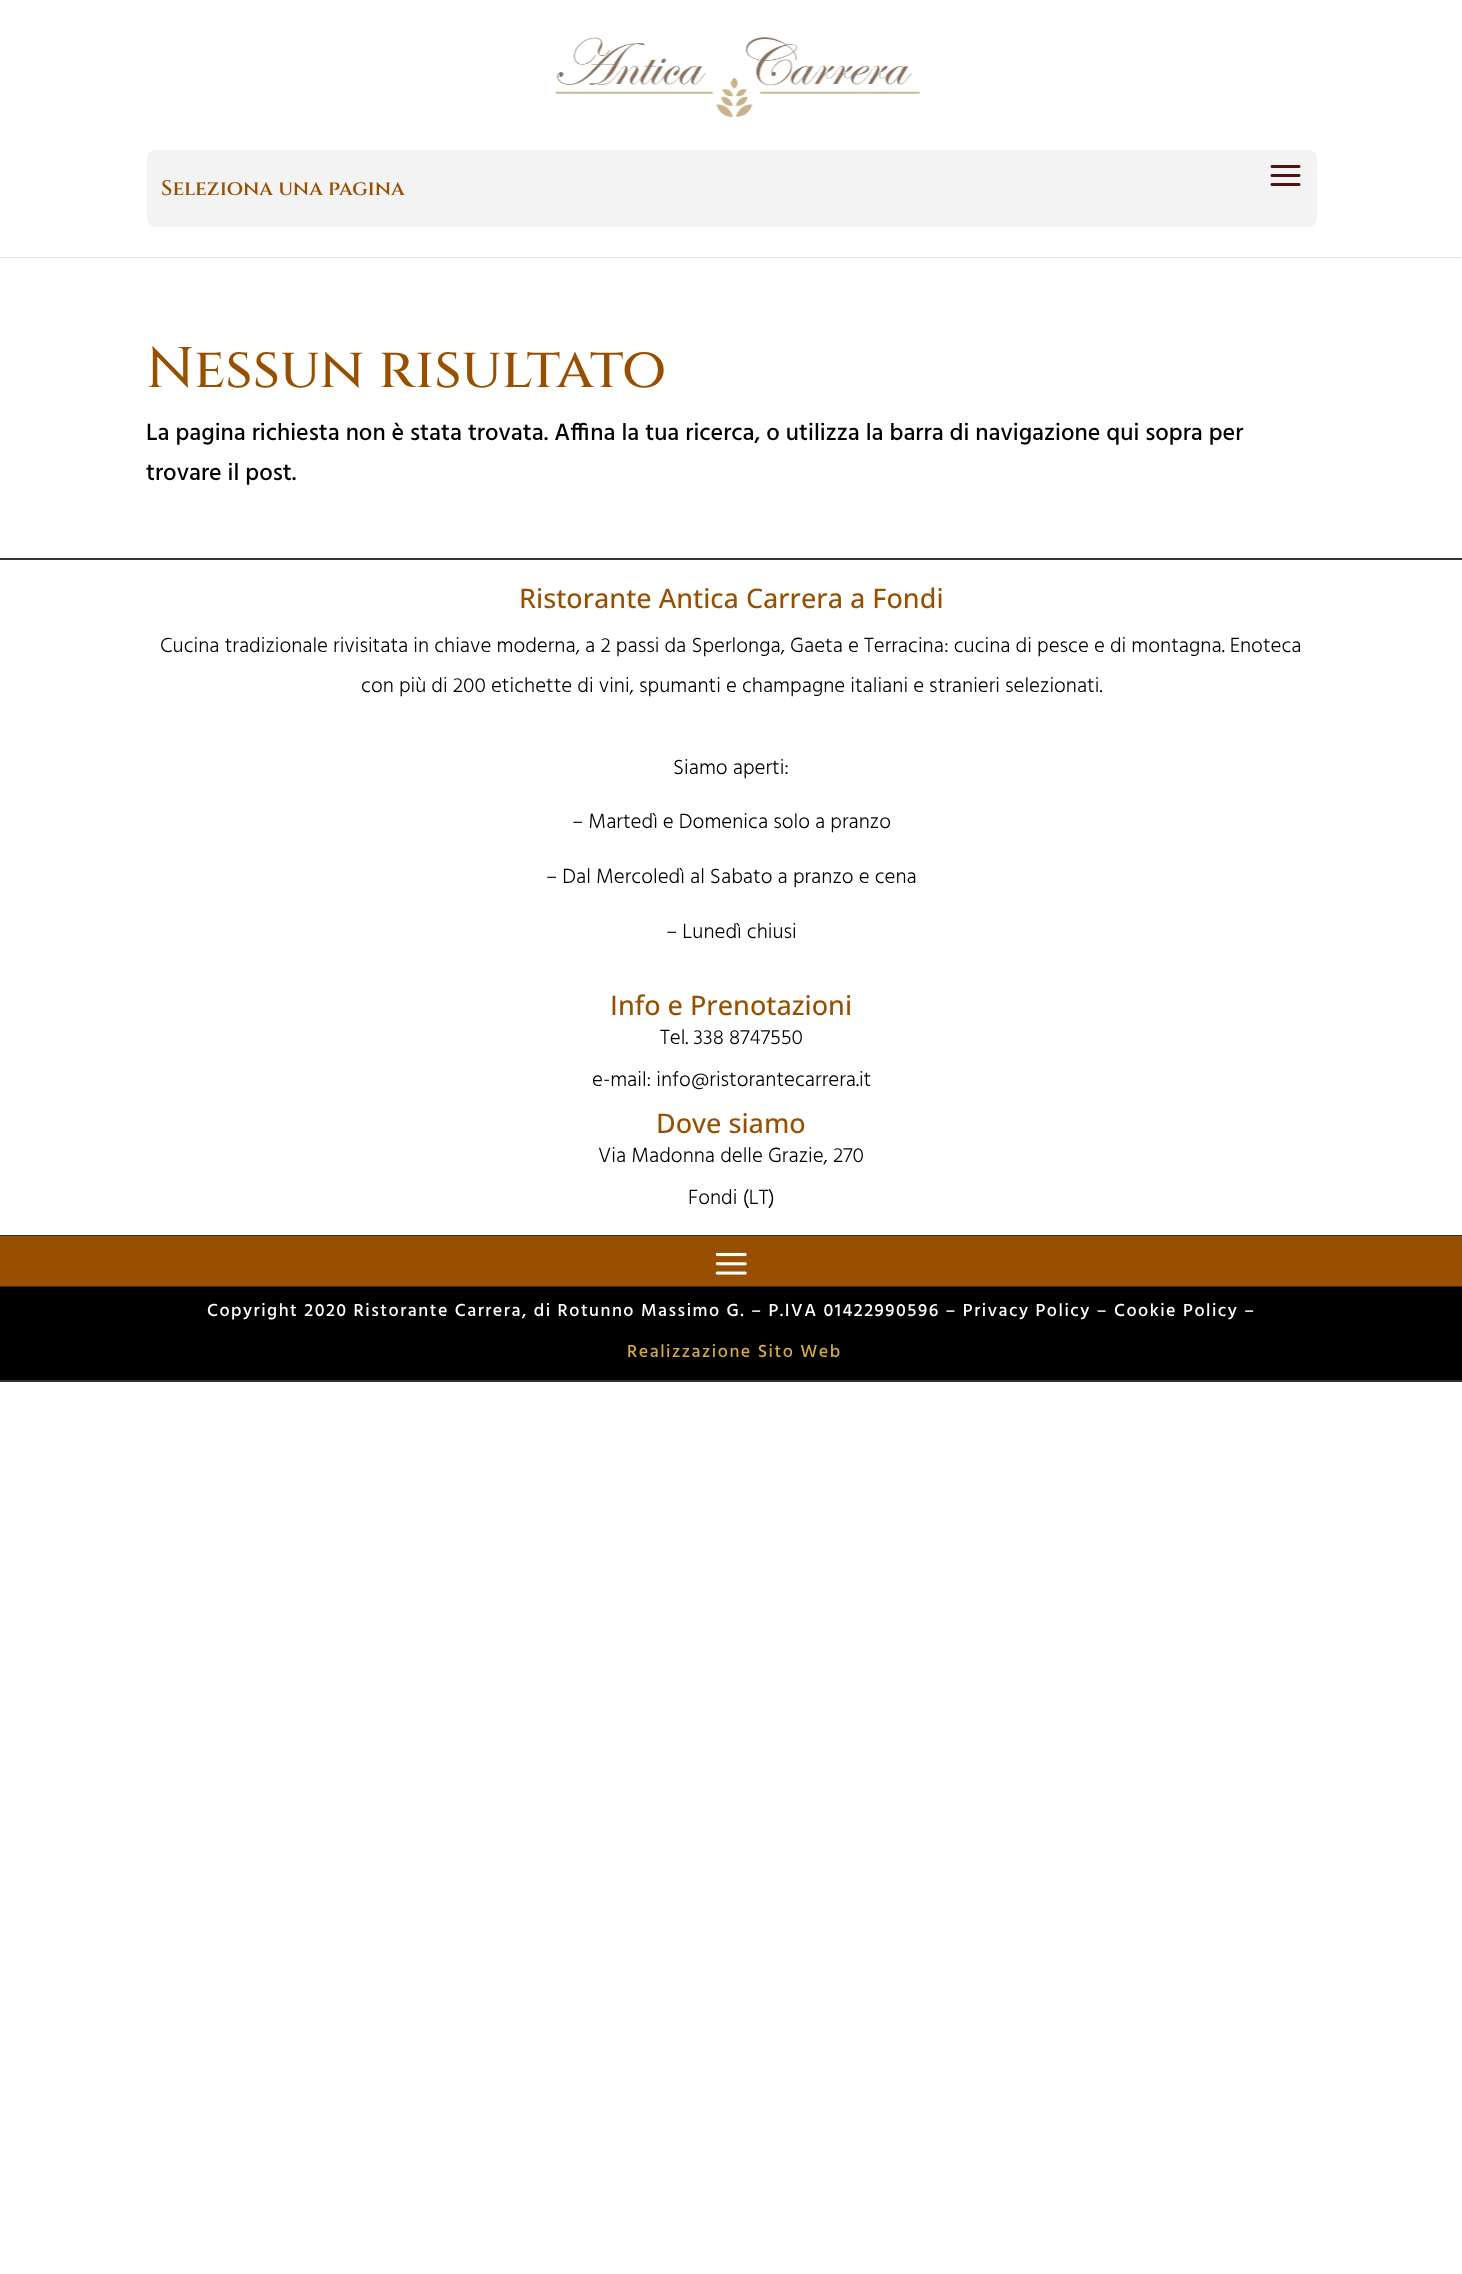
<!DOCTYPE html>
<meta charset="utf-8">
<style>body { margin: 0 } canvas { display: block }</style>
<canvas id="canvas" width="1462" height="2274"></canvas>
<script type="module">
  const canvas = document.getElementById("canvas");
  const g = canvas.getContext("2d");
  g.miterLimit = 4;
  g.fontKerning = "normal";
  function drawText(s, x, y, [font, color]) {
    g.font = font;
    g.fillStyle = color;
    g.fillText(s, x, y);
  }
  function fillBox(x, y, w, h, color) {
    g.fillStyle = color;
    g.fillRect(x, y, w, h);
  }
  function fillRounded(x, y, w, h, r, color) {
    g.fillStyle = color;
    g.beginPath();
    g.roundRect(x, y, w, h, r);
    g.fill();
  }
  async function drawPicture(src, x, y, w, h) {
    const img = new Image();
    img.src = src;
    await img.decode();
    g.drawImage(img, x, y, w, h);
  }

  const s1 = ["600 21px Cinzel", "#994F00"];
  const s2 = ["500 57px Cinzel", "#994F00"];
  const s3 = ["500 24px Hind", "#000000"];
  const s4 = ["500 27px Open Sans", "#994F00"];
  const s5 = ["300 21px Hind", "#000000"];
  const s6 = ["500 18px Hind", "#FFFFFF"];
  const s7 = ["500 18px Hind", "#D1A945"];

  fillBox(0, 0, 1462, 2274, "#FFFFFF");
  g.fillStyle = "#E6E6E6";
  g.beginPath();
  g.moveTo(0, 256);
  g.lineTo(0, 258);
  g.lineTo(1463, 258);
  g.lineTo(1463, 2);
  g.lineTo(1462, 2);
  g.lineTo(1462, 256);
  g.closePath();
  g.fill();
  fillBox(0, 256, 1462, 1, "#FFFFFF");
  await drawPicture("pic1.png", 555, 37, 366, 80);
  fillRounded(147, 150, 1170, 77, 8, "#F3F3F3");
  await drawPicture("pic2.png", 1270, 165, 31, 21);
  drawText("Seleziona una pagina", 161, 195, s1);
  drawText("Nessun risultato", 146, 387, s2);
  drawText("La pagina richiesta non è stata trovata. Affina la tua ricerca, o utilizza la barra di navigazione qui sopra per", 146, 440, s3);
  drawText("trovare il post.", 146, 480, s3);
  fillBox(0, 558, 1462, 2, "#333333");
  fillBox(0, 1235, 1462, 1, "#333333");
  drawText("Ristorante Antica Carrera a Fondi", 519, 608, s4);
  drawText("Cucina tradizionale rivisitata in chiave moderna, a 2 passi da Sperlonga, Gaeta e Terracina: cucina di pesce e di montagna. Enoteca", 160, 652, s5);
  drawText("con più di 200 etichette di vini, spumanti e champagne italiani e stranieri selezionati.", 361, 692, s5);
  drawText("Siamo aperti:", 673, 774, s5);
  drawText("– Martedì e Domenica solo a pranzo", 572, 828, s5);
  drawText("– Dal Mercoledì al Sabato a pranzo e cena", 546, 883, s5);
  drawText("– Lunedì chiusi", 666, 938, s5);
  drawText("Info e Prenotazioni", 610, 1015, s4);
  drawText("Tel. 338 8747550", 660, 1044, s5);
  drawText("e-mail: info@ristorantecarrera.it", 592, 1086, s5);
  drawText("Dove siamo", 656, 1133, s4);
  drawText("Via Madonna delle Grazie, 270", 598, 1162, s5);
  drawText("Fondi (LT)", 688, 1204, s5);
  fillBox(0, 1236, 1462, 50, "#994F00");
  fillBox(0, 1286, 1462, 1, "#333333");
  await drawPicture("pic3.png", 715, 1252, 32, 23);
  fillBox(0, 1287, 1462, 93, "#000000");
  fillBox(0, 1380, 1462, 2, "#333333");
  g.letterSpacing = "1.5px";
  drawText("Copyright 2020 Ristorante Carrera, di Rotunno Massimo G. – P.IVA 01422990596 – Privacy Policy – Cookie Policy –", 207, 1316, s6);
  drawText("Realizzazione Sito Web", 627, 1357, s7);
</script>
